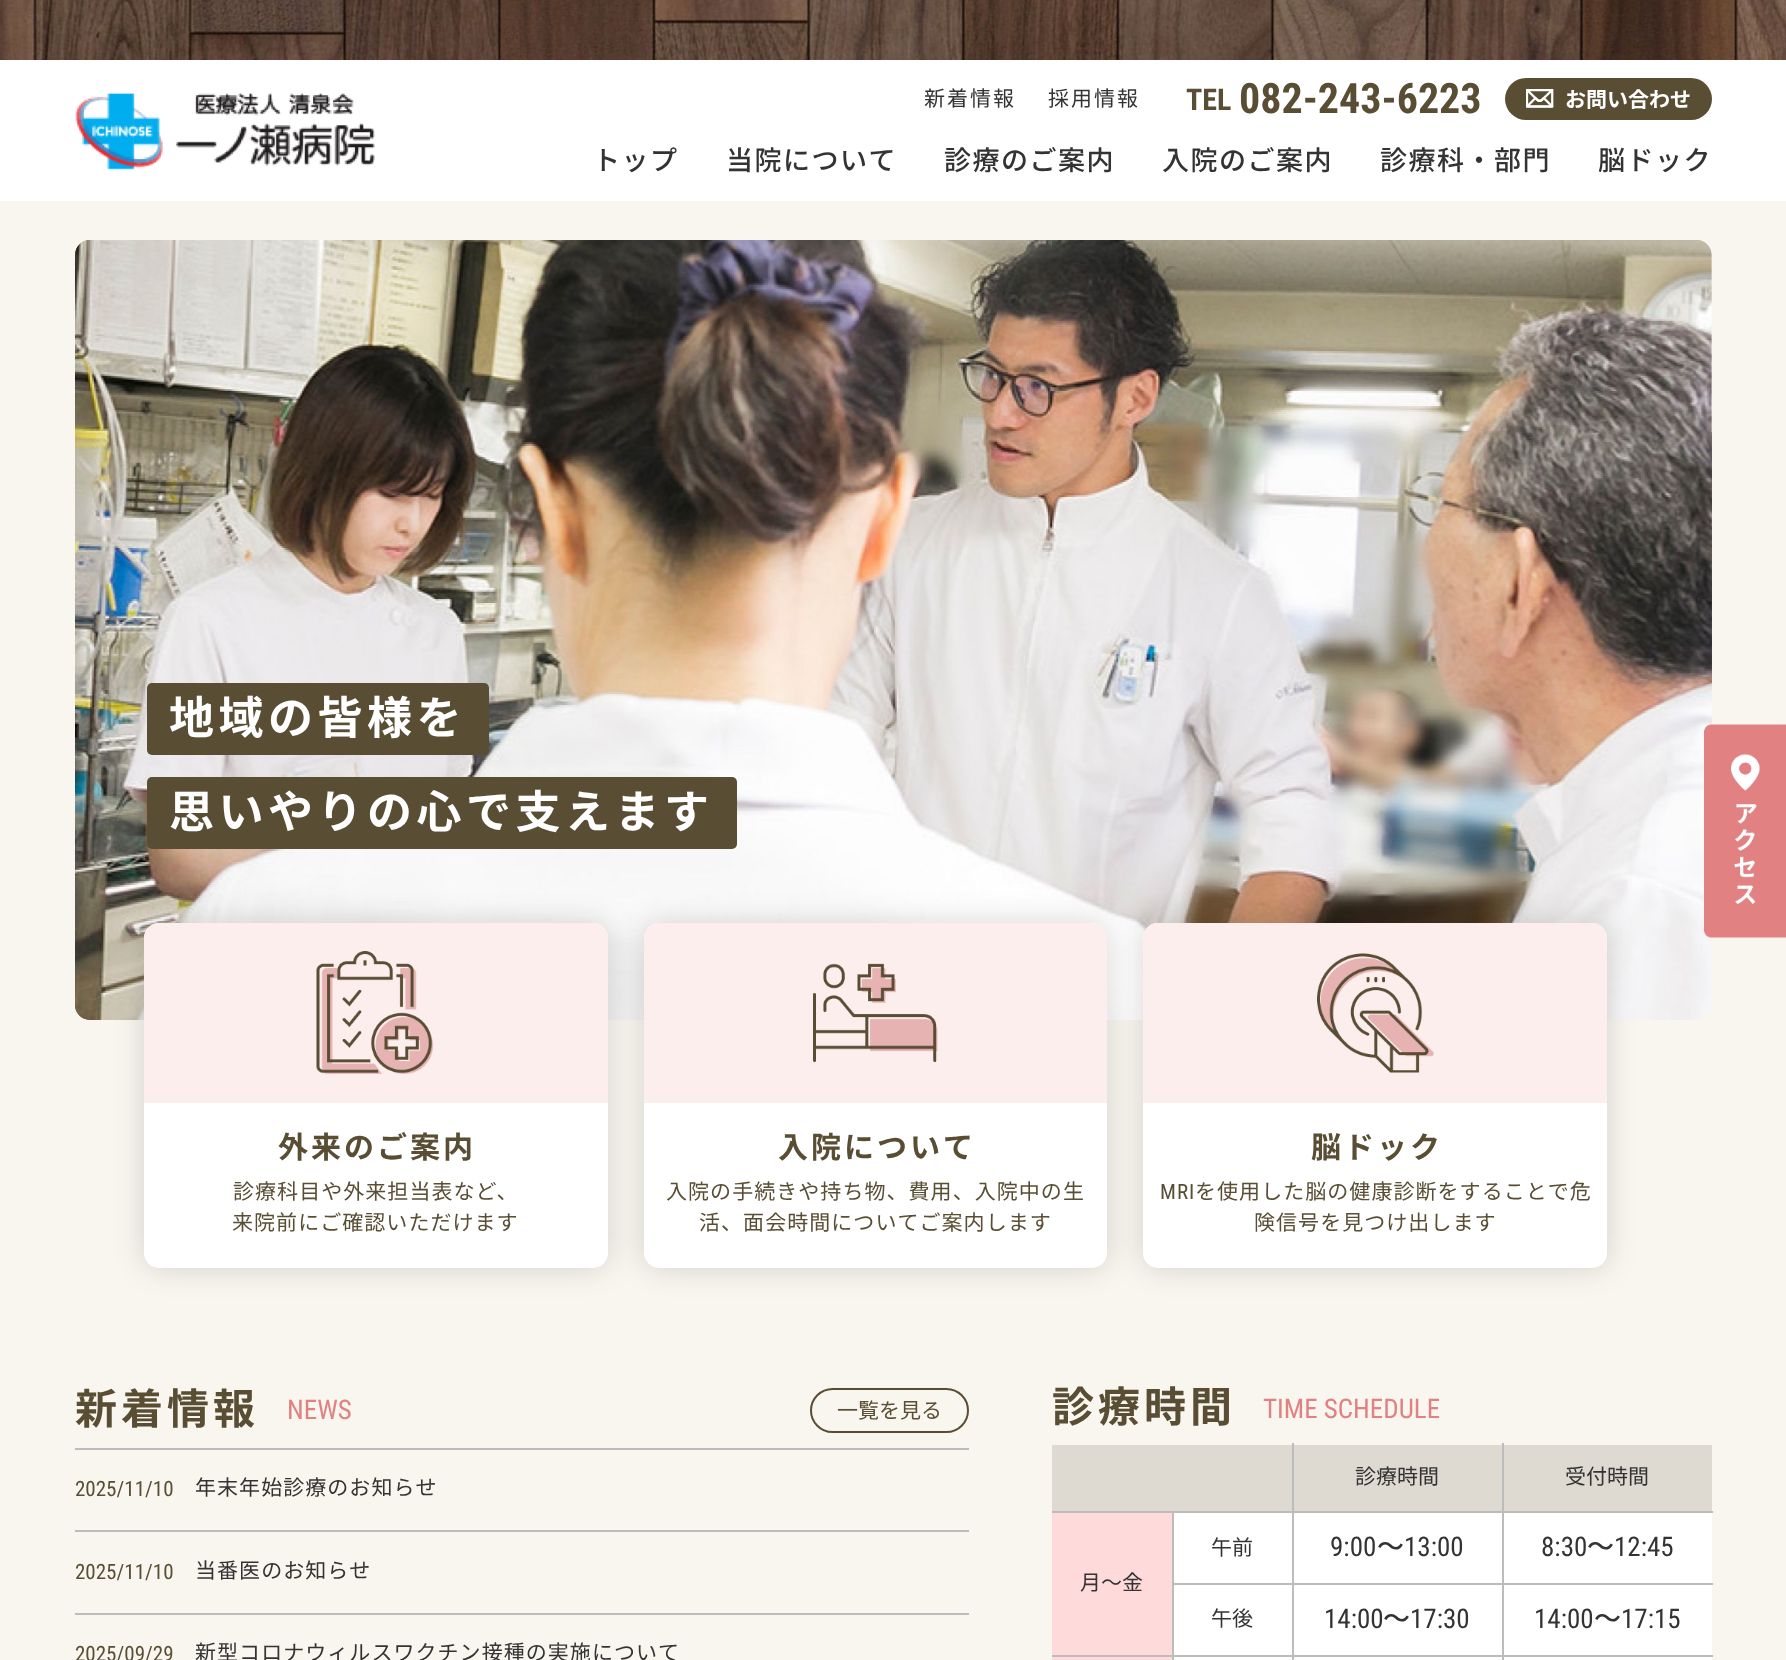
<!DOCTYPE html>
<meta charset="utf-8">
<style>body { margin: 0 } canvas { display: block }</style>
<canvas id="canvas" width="1786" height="1660"></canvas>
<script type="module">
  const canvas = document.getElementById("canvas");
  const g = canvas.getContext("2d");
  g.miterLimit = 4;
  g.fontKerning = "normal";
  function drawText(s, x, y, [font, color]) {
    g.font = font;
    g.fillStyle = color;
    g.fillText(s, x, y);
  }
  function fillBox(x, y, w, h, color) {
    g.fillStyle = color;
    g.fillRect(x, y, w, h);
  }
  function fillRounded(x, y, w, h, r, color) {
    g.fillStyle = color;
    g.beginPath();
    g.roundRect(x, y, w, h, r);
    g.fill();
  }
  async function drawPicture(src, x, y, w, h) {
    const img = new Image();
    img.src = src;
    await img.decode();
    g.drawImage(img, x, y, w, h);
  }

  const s1 = ["21px Noto Sans JP", "#333333"];
  const s2 = ["bold 30px Roboto Condensed", "#594D34"];
  const s3 = ["bold 42px Roboto Condensed", "#594D34"];
  const s4 = ["bold 21px Noto Sans JP", "#FFFFFF"];
  const s5 = ["500 27px Noto Sans JP", "#333333"];
  const s6 = ["bold 45px Noto Sans JP", "#FFFFFF"];
  const s7 = ["bold 30px Noto Sans JP", "#594D34"];
  const s8 = ["21px Noto Sans JP", "#594D34"];
  const s9 = ["21px Roboto Condensed", "#594D34"];
  const s10 = ["bold 42px Noto Sans JP", "#594D34"];
  const s11 = ["27px Roboto Condensed", "#E28181"];
  const s12 = ["27px Roboto Condensed", "#333333"];

  fillBox(0, 0, 1786, 1660, "#F8F6EF");
  fillBox(0, 60, 1786, 141, "#FFFFFF");
  await drawPicture("pic1.png", 0, 0, 1786, 60);
  await drawPicture("pic2.png", 75, 93, 300, 77);
  g.letterSpacing = "2px";
  drawText("新着情報", 924, 106, s1);
  drawText("採用情報", 1048, 106, s1);
  g.letterSpacing = "0px";
  drawText("TEL", 1186, 110, s2);
  drawText("082-243-6223", 1239, 113, s3);
  fillRounded(1505, 78, 207, 42, 21, "#594D34");
  await drawPicture("pic3.png", 1526, 89, 28, 19);
  drawText("お問い合わせ", 1565, 107, s4);
  g.letterSpacing = "1.5px";
  drawText("トップ", 593, 170, s5);
  drawText("当院について", 726, 170, s5);
  drawText("診療のご案内", 944, 170, s5);
  drawText("入院のご案内", 1162, 170, s5);
  drawText("診療科・部門", 1380, 170, s5);
  drawText("脳ドック", 1598, 170, s5);
  await drawPicture("pic4.png", 75, 240, 1637, 780);
  await drawPicture("pic5.png", 75, 240, 1637, 780);
  fillRounded(147, 683, 342, 72, 5, "#594D34");
  g.letterSpacing = "4.5px";
  drawText("地域の皆様を", 169, 734, s6);
  fillRounded(147, 777, 590, 72, 5, "#594D34");
  drawText("思いやりの心で支えます", 169, 828, s6);
  g.fillStyle = "rgba(0, 0, 0, 0.15)";
  g.filter = "blur(15px)";
  g.beginPath();
  g.roundRect(144, 923, 464, 345, 15);
  g.fill();
  g.filter = "none";
  fillRounded(144, 923, 464, 345, 15, "#FFFFFF");
  g.fillStyle = "#FDEEEE";
  g.beginPath();
  g.roundRect(144, 923, 464, 180, [15, 15, 0, 0]);
  g.fill();
  await drawPicture("pic6.png", 316, 951, 118, 123);
  g.letterSpacing = "3px";
  drawText("外来のご案内", 278, 1158, s7);
  g.letterSpacing = "1.05px";
  drawText("診療科目や外来担当表など、", 233, 1199, s8);
  drawText("来院前にご確認いただけます", 232, 1230, s8);
  g.fillStyle = "rgba(0, 0, 0, 0.15)";
  g.filter = "blur(15px)";
  g.beginPath();
  g.roundRect(644, 923, 463, 345, 15);
  g.fill();
  g.filter = "none";
  fillRounded(644, 923, 463, 345, 15, "#FFFFFF");
  g.fillStyle = "#FDEEEE";
  g.beginPath();
  g.roundRect(644, 923, 463, 180, [15, 15, 0, 0]);
  g.fill();
  await drawPicture("pic7.png", 813, 963, 125, 99);
  g.letterSpacing = "3px";
  drawText("入院について", 778, 1158, s7);
  g.letterSpacing = "1.05px";
  drawText("入院の手続きや持ち物、費用、入院中の生", 666, 1199, s8);
  drawText("活、面会時間についてご案内します", 699, 1230, s8);
  g.fillStyle = "rgba(0, 0, 0, 0.15)";
  g.filter = "blur(15px)";
  g.beginPath();
  g.roundRect(1143, 923, 464, 345, 15);
  g.fill();
  g.filter = "none";
  fillRounded(1143, 923, 464, 345, 15, "#FFFFFF");
  g.fillStyle = "#FDEEEE";
  g.beginPath();
  g.roundRect(1143, 923, 464, 180, [15, 15, 0, 0]);
  g.fill();
  await drawPicture("pic8.png", 1317, 953, 117, 120);
  g.letterSpacing = "3px";
  drawText("脳ドック", 1311, 1158, s7);
  g.letterSpacing = "1.05px";
  drawText("MRI", 1160, 1199, s9);
  drawText("を使用した脳の健康診断をすることで危", 1195, 1199, s8);
  drawText("険信号を見つけ出します", 1254, 1230, s8);
  g.letterSpacing = "4px";
  drawText("新着情報", 75, 1424, s10);
  g.letterSpacing = "0px";
  drawText("NEWS", 287, 1419, s11);
  g.beginPath();
  g.roundRect(811, 1389, 157, 43, 21.5);
  g.strokeStyle = "#594D34";
  g.lineWidth = 2;
  g.stroke();
  drawText("一覧を見る", 837, 1418, s8);
  fillBox(75, 1448, 894, 2, "#BCBCBC");
  fillBox(75, 1530, 894, 2, "#BCBCBC");
  drawText("2025/11/10", 75, 1496, s9);
  g.letterSpacing = "1.05px";
  drawText("年末年始診療のお知らせ", 195, 1495, s1);
  fillBox(75, 1613, 894, 2, "#BCBCBC");
  g.letterSpacing = "0px";
  drawText("2025/11/10", 75, 1579, s9);
  g.letterSpacing = "1.05px";
  drawText("当番医のお知らせ", 195, 1578, s1);
  g.letterSpacing = "0px";
  drawText("2025/09/29", 75, 1661, s9);
  g.letterSpacing = "1.05px";
  drawText("新型コロナウィルスワクチン接種の実施について", 195, 1660, s1);
  g.letterSpacing = "4px";
  drawText("診療時間", 1052, 1422, s10);
  g.letterSpacing = "0px";
  drawText("TIME SCHEDULE", 1263, 1418, s11);
  fillBox(1052, 1445, 240, 66, "#DFDAD1");
  fillBox(1172, 1657, 540, 3, "#FFFFFF");
  fillBox(1502, 1655, 2, 5, "#BCBCBC");
  fillBox(1502, 1655, 211, 2, "#BCBCBC");
  fillBox(1502, 1583, 2, 73, "#BCBCBC");
  fillBox(1502, 1583, 211, 2, "#BCBCBC");
  fillBox(1502, 1511, 2, 73, "#BCBCBC");
  fillBox(1502, 1511, 211, 2, "#BCBCBC");
  fillBox(1502, 1443, 2, 69, "#BCBCBC");
  fillBox(1292, 1655, 2, 5, "#BCBCBC");
  fillBox(1292, 1655, 211, 2, "#BCBCBC");
  fillBox(1292, 1583, 2, 73, "#BCBCBC");
  fillBox(1292, 1583, 211, 2, "#BCBCBC");
  fillBox(1292, 1511, 2, 73, "#BCBCBC");
  fillBox(1292, 1511, 211, 2, "#BCBCBC");
  fillBox(1292, 1443, 2, 69, "#BCBCBC");
  fillBox(1172, 1655, 2, 5, "#BCBCBC");
  fillBox(1172, 1655, 121, 2, "#BCBCBC");
  fillBox(1172, 1583, 2, 73, "#BCBCBC");
  fillBox(1172, 1583, 121, 2, "#BCBCBC");
  fillBox(1172, 1511, 2, 73, "#BCBCBC");
  fillBox(1052, 1511, 241, 2, "#BCBCBC");
  fillBox(1294, 1445, 208, 66, "#DFDAD1");
  drawText("診療時間", 1355, 1484, s1);
  fillBox(1504, 1445, 208, 66, "#DFDAD1");
  drawText("受付時間", 1565, 1484, s1);
  fillBox(1174, 1513, 118, 70, "#FFFFFF");
  drawText("午前", 1211, 1555, s1);
  fillBox(1294, 1513, 208, 70, "#FFFFFF");
  drawText("9:00", 1330, 1556, s12);
  drawText("〜", 1377, 1556, s5);
  drawText("13:00", 1404, 1556, s12);
  fillBox(1504, 1513, 208, 70, "#FFFFFF");
  drawText("8:30", 1541, 1556, s12);
  drawText("〜", 1587, 1556, s5);
  drawText("12:45", 1614, 1556, s12);
  fillBox(1052, 1513, 120, 142, "#FFDADA");
  fillBox(1052, 1655, 121, 2, "#BCBCBC");
  drawText("月〜金", 1080, 1590, s1);
  fillBox(1174, 1585, 118, 70, "#FFFFFF");
  drawText("午後", 1211, 1626, s1);
  fillBox(1294, 1585, 208, 70, "#FFFFFF");
  drawText("14:00", 1324, 1628, s12);
  drawText("〜", 1383, 1628, s5);
  drawText("17:30", 1410, 1628, s12);
  fillBox(1504, 1585, 208, 70, "#FFFFFF");
  drawText("14:00", 1534, 1628, s12);
  drawText("〜", 1594, 1628, s5);
  drawText("17:15", 1621, 1628, s12);
  fillBox(1052, 1657, 120, 3, "#FFDADA");
  await drawPicture("pic9.png", 1704, 724, 82, 214);
</script>
